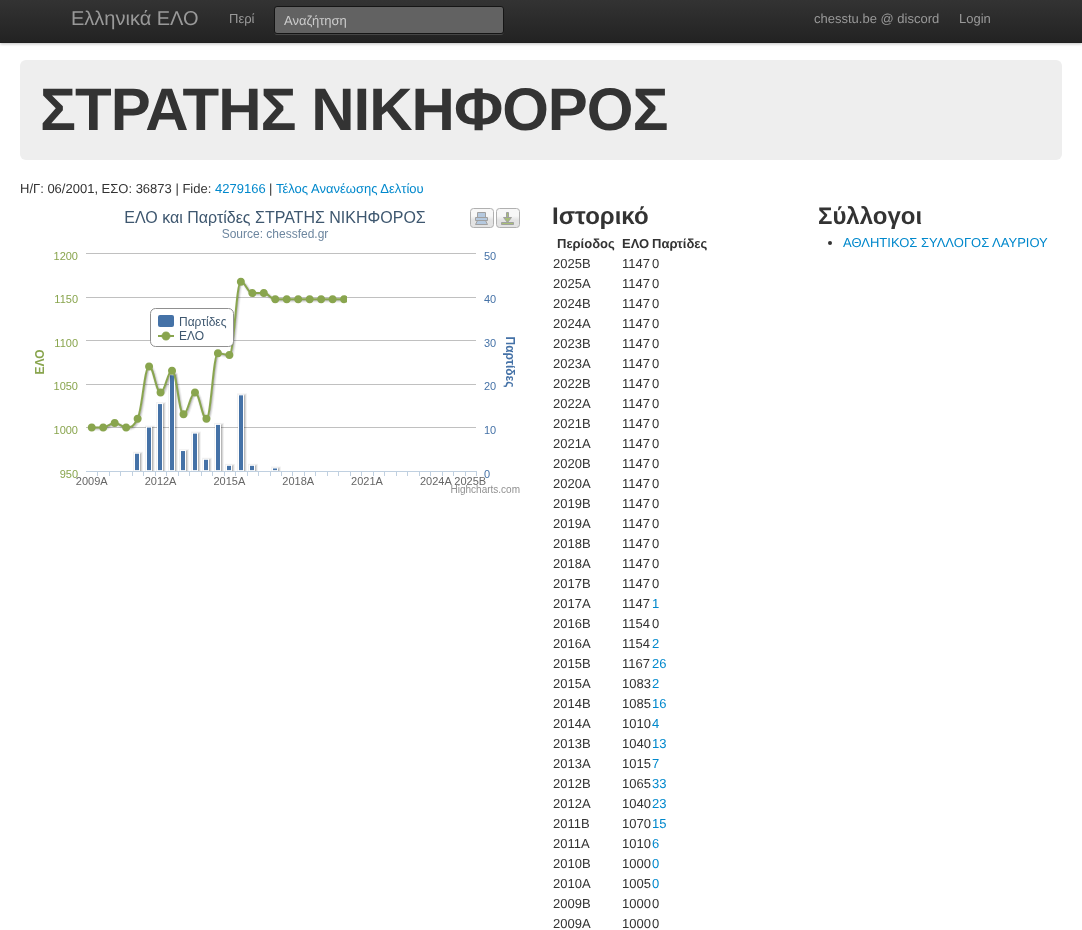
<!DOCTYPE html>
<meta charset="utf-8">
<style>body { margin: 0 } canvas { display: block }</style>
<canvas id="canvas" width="1082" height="930"></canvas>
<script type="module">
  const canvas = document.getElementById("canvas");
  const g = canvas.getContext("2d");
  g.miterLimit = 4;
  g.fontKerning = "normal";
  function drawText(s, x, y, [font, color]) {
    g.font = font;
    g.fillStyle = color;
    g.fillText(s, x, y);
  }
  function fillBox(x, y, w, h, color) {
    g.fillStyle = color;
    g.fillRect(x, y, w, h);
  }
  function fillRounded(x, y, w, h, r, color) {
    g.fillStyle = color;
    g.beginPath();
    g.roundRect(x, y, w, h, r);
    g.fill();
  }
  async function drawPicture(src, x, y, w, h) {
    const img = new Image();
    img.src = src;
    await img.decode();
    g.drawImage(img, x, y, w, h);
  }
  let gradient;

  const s1 = ["20px Liberation Sans", "#999999"];
  const s2 = ["13px Liberation Sans", "#999999"];
  const s3 = ["13px Liberation Sans", "#CCCCCC"];
  const s4 = ["bold 60px Liberation Sans", "#333333"];
  const s5 = ["13px Liberation Sans", "#333333"];
  const s6 = ["13px Liberation Sans", "#0088CC"];
  const s7 = ["bold 24px Liberation Sans", "#333333"];
  const s8 = ["bold 13px Liberation Sans", "#333333"];

  fillBox(0, 0, 1082, 930, "#FFFFFF");
  g.fillStyle = "rgba(0, 0, 0, 0.25)";
  g.filter = "blur(1.5px)";
  g.beginPath();
  g.rect(0, 1, 1082, 43);
  g.fill();
  g.filter = "none";
  gradient = g.createLinearGradient(541, 0, 541, 43);
  gradient.addColorStop(0, "#333333");
  gradient.addColorStop(1, "#222222");
  g.fillStyle = gradient;
  g.fillRect(0, 0, 1082, 42);
  fillBox(0, 42, 1082, 1, "#1F1F1F");
  drawText("Ελληνικά ΕΛΟ", 71, 25, s1);
  drawText("Περί", 229, 23, s2);
  g.fillStyle = "#464646";
  g.beginPath();
  g.moveTo(274, 31);
  g.bezierCurveTo(274, 33, 275, 35, 277, 35);
  g.lineTo(501, 35);
  g.bezierCurveTo(503, 35, 504, 33, 504, 31);
  g.bezierCurveTo(504, 33, 503, 34, 501, 34);
  g.lineTo(277, 34);
  g.bezierCurveTo(275, 34, 274, 33, 274, 31);
  g.closePath();
  g.fill();
  g.fillStyle = "#626262";
  g.beginPath();
  g.roundRect(274.5, 6.5, 229, 27, 2.5);
  g.fill();
  g.strokeStyle = "#151515";
  g.stroke();
  drawText("Αναζήτηση", 284, 25, s3);
  drawText("chesstu.be @ discord", 814, 23, s2);
  drawText("Login", 959, 23, s2);
  fillRounded(20, 60, 1042, 100, 6, "#EEEEEE");
  g.letterSpacing = "-1px";
  drawText("ΣΤΡΑΤΗΣ ΝΙΚΗΦΟΡΟΣ", 40, 130, s4);
  g.letterSpacing = "0px";
  drawText("Η/Γ: 06/2001, ΕΣΟ: 36873 | Fide:", 20, 193, s5);
  drawText("4279166", 215, 193, s6);
  drawText("|", 269, 193, s5);
  drawText("Τέλος Ανανέωσης Δελτίου", 276, 193, s6);
  await drawPicture("pic1.png", 35, 208, 485, 287);
  drawText("Ιστορικό", 552, 224, s7);
  drawText("Περίοδος", 557, 248, s8);
  drawText("ΕΛΟ", 622, 248, s8);
  drawText("Παρτίδες", 652, 248, s8);
  drawText("2025B", 553, 268, s5);
  drawText("1147", 622, 268, s5);
  drawText("0", 652, 268, s5);
  drawText("2025A", 553, 288, s5);
  drawText("1147", 622, 288, s5);
  drawText("0", 652, 288, s5);
  drawText("2024B", 553, 308, s5);
  drawText("1147", 622, 308, s5);
  drawText("0", 652, 308, s5);
  drawText("2024A", 553, 328, s5);
  drawText("1147", 622, 328, s5);
  drawText("0", 652, 328, s5);
  drawText("2023B", 553, 348, s5);
  drawText("1147", 622, 348, s5);
  drawText("0", 652, 348, s5);
  drawText("2023Α", 553, 368, s5);
  drawText("1147", 622, 368, s5);
  drawText("0", 652, 368, s5);
  drawText("2022B", 553, 388, s5);
  drawText("1147", 622, 388, s5);
  drawText("0", 652, 388, s5);
  drawText("2022A", 553, 408, s5);
  drawText("1147", 622, 408, s5);
  drawText("0", 652, 408, s5);
  drawText("2021B", 553, 428, s5);
  drawText("1147", 622, 428, s5);
  drawText("0", 652, 428, s5);
  drawText("2021A", 553, 448, s5);
  drawText("1147", 622, 448, s5);
  drawText("0", 652, 448, s5);
  drawText("2020B", 553, 468, s5);
  drawText("1147", 622, 468, s5);
  drawText("0", 652, 468, s5);
  drawText("2020A", 553, 488, s5);
  drawText("1147", 622, 488, s5);
  drawText("0", 652, 488, s5);
  drawText("2019B", 553, 508, s5);
  drawText("1147", 622, 508, s5);
  drawText("0", 652, 508, s5);
  drawText("2019A", 553, 528, s5);
  drawText("1147", 622, 528, s5);
  drawText("0", 652, 528, s5);
  drawText("2018B", 553, 548, s5);
  drawText("1147", 622, 548, s5);
  drawText("0", 652, 548, s5);
  drawText("2018A", 553, 568, s5);
  drawText("1147", 622, 568, s5);
  drawText("0", 652, 568, s5);
  drawText("2017B", 553, 588, s5);
  drawText("1147", 622, 588, s5);
  drawText("0", 652, 588, s5);
  drawText("2017A", 553, 608, s5);
  drawText("1147", 622, 608, s5);
  drawText("1", 652, 608, s6);
  drawText("2016B", 553, 628, s5);
  drawText("1154", 622, 628, s5);
  drawText("0", 652, 628, s5);
  drawText("2016A", 553, 648, s5);
  drawText("1154", 622, 648, s5);
  drawText("2", 652, 648, s6);
  drawText("2015B", 553, 668, s5);
  drawText("1167", 622, 668, s5);
  drawText("26", 652, 668, s6);
  drawText("2015A", 553, 688, s5);
  drawText("1083", 622, 688, s5);
  drawText("2", 652, 688, s6);
  drawText("2014B", 553, 708, s5);
  drawText("1085", 622, 708, s5);
  drawText("16", 652, 708, s6);
  drawText("2014A", 553, 728, s5);
  drawText("1010", 622, 728, s5);
  drawText("4", 652, 728, s6);
  drawText("2013B", 553, 748, s5);
  drawText("1040", 622, 748, s5);
  drawText("13", 652, 748, s6);
  drawText("2013A", 553, 768, s5);
  drawText("1015", 622, 768, s5);
  drawText("7", 652, 768, s6);
  drawText("2012B", 553, 788, s5);
  drawText("1065", 622, 788, s5);
  drawText("33", 652, 788, s6);
  drawText("2012A", 553, 808, s5);
  drawText("1040", 622, 808, s5);
  drawText("23", 652, 808, s6);
  drawText("2011B", 553, 828, s5);
  drawText("1070", 622, 828, s5);
  drawText("15", 652, 828, s6);
  drawText("2011A", 553, 848, s5);
  drawText("1010", 622, 848, s5);
  drawText("6", 652, 848, s6);
  drawText("2010B", 553, 868, s5);
  drawText("1000", 622, 868, s5);
  drawText("0", 652, 868, s6);
  drawText("2010A", 553, 888, s5);
  drawText("1005", 622, 888, s5);
  drawText("0", 652, 888, s6);
  drawText("2009B", 553, 908, s5);
  drawText("1000", 622, 908, s5);
  drawText("0", 652, 908, s5);
  drawText("2009A", 553, 928, s5);
  drawText("1000", 622, 928, s5);
  drawText("0", 652, 928, s5);
  drawText("Σύλλογοι", 818, 224, s7);
  g.beginPath();
  g.arc(830, 243, 2, 0, Math.PI * 2);
  g.fill();
  drawText("ΑΘΛΗΤΙΚΟΣ ΣΥΛΛΟΓΟΣ ΛΑΥΡΙΟΥ", 843, 247, s6);
</script>
